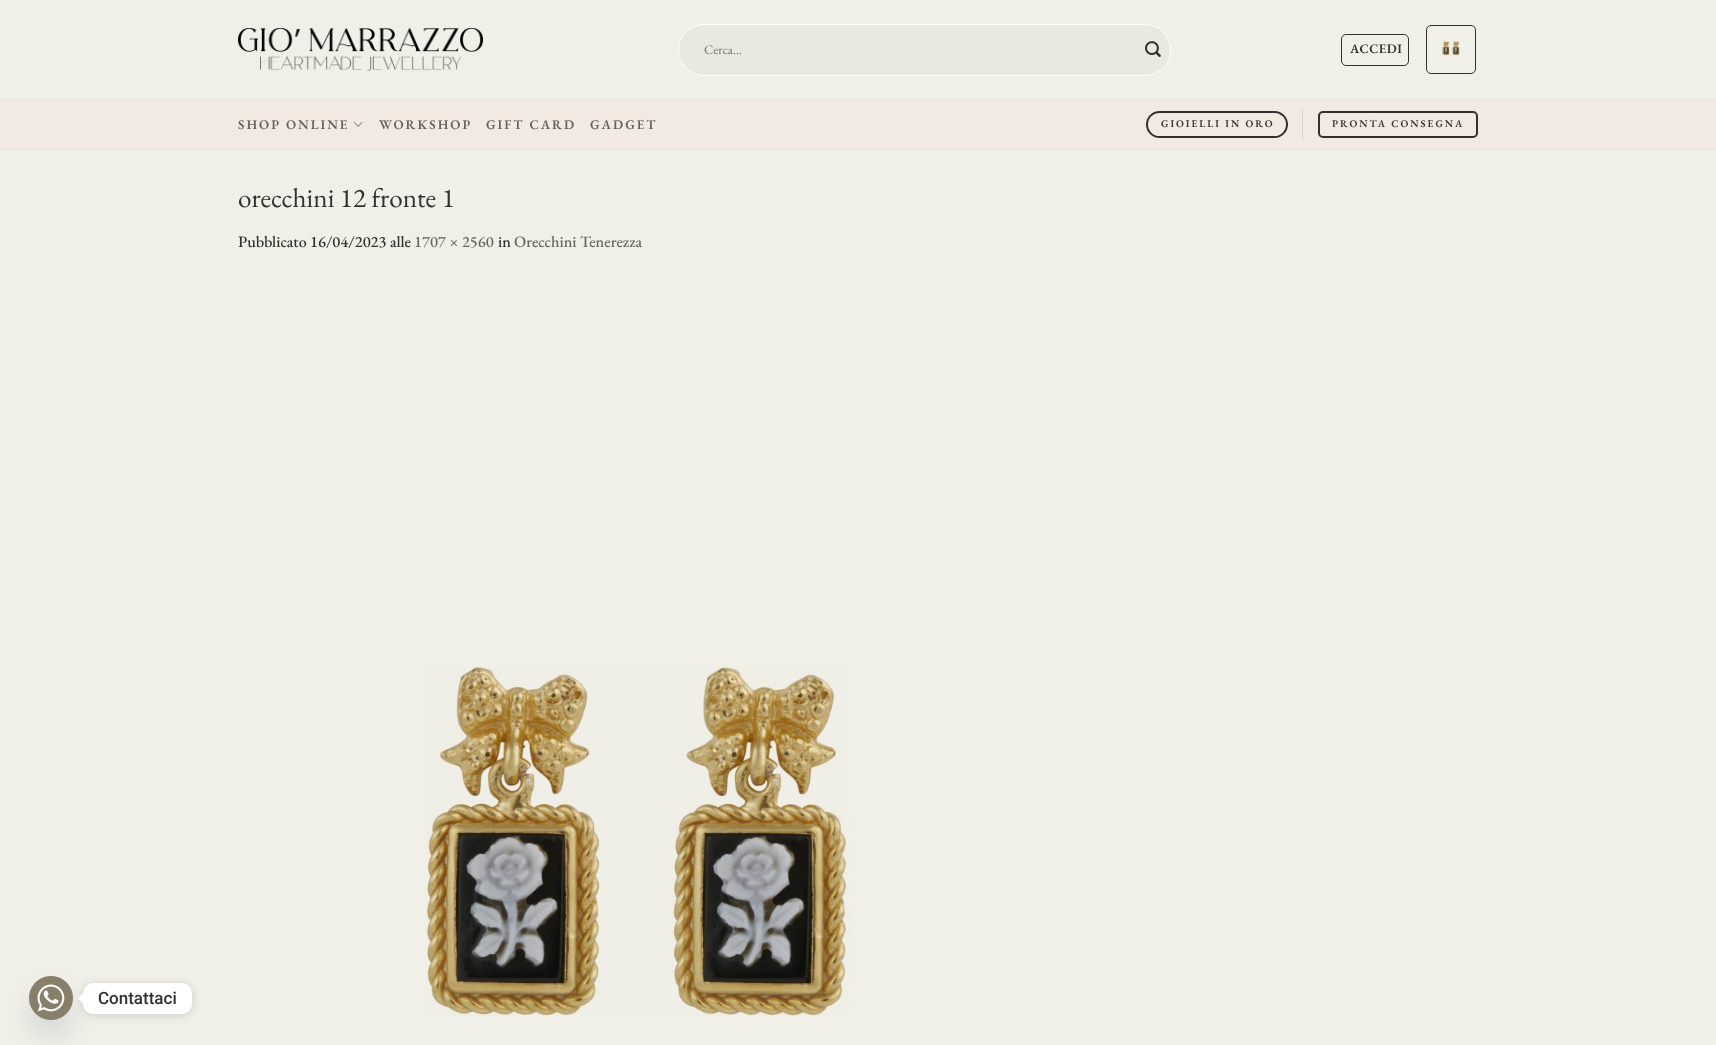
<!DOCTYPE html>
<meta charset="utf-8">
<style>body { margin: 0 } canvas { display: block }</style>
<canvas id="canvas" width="1716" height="1045"></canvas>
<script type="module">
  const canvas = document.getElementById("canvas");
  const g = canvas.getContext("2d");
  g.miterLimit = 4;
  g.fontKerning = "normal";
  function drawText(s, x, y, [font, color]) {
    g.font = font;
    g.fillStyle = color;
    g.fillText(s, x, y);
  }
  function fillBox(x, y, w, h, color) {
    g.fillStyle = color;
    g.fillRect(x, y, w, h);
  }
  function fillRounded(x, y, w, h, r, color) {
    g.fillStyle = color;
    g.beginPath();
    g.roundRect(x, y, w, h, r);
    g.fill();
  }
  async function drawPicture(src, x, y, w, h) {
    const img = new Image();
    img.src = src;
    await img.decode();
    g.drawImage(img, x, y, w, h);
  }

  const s1 = ["13px EB Garamond", "#757575"];
  const s2 = ["600 13px EB Garamond", "#33312F"];
  const s3 = ["600 13.25px EB Garamond", "#636261"];
  const s4 = ["600 10.25px EB Garamond", "#33312F"];
  const s5 = ["27.25px EB Garamond", "#33312F"];
  const s6 = ["500 16px EB Garamond", "#33312F"];
  const s7 = ["500 16px EB Garamond", "#67695E"];
  const s8 = ["500 17px Roboto", "#33312F"];

  fillBox(0, 0, 1716, 1045, "#F0EFE8");
  fillBox(0, 99, 1716, 1, "#E6E6E6");
  await drawPicture("pic1.png", 238, 28, 245, 43);
  g.fillStyle = "#E9E8E1";
  g.beginPath();
  g.roundRect(678.5, 24.5, 492, 51, 25.5);
  g.fill();
  g.strokeStyle = "#FFFFFF";
  g.stroke();
  drawText("Cerca…", 704, 54, s1);
  await drawPicture("pic2.png", 1145, 41, 16, 16);
  g.beginPath();
  g.roundRect(1341.5, 34.5, 67, 31, 4.5);
  g.strokeStyle = "#33312F";
  g.stroke();
  g.letterSpacing = "0.5px";
  drawText("ACCEDI", 1350, 53, s2);
  g.beginPath();
  g.roundRect(1426.5, 25.5, 49, 48, 4.5);
  g.stroke();
  await drawPicture("pic3.png", 1442, 40, 18, 16);
  fillBox(0, 100, 1716, 49, "#F1E9E2");
  fillBox(0, 149, 1716, 1, "#E6E6E6");
  g.letterSpacing = "2px";
  drawText("SHOP ONLINE", 238, 129, s3);
  await drawPicture("pic4.png", 353, 121, 10, 6);
  drawText("WORKSHOP", 379, 129, s3);
  drawText("GIFT CARD", 486, 129, s3);
  drawText("GADGET", 590, 129, s3);
  g.beginPath();
  g.roundRect(1147, 112, 140, 25, 12.5);
  g.lineWidth = 2;
  g.stroke();
  drawText("GIOIELLI IN ORO", 1161, 127, s4);
  fillBox(1302, 110, 1, 30, "#D9D2CB");
  g.beginPath();
  g.roundRect(1319, 112, 158, 25, 4);
  g.stroke();
  drawText("PRONTA CONSEGNA", 1332, 127, s4);
  g.letterSpacing = "0px";
  drawText("orecchini 12 fronte 1", 238, 207, s5);
  drawText("Pubblicato 16/04/2023 alle", 238, 247, s6);
  drawText("1707 × 2560", 414, 247, s7);
  drawText("in", 498, 247, s6);
  drawText("Orecchini Tenerezza", 514, 247, s7);
  await drawPicture("pic5.png", 425, 666, 426, 351);
  g.fillStyle = "rgba(73, 104, 126, 0.16)";
  g.filter = "blur(12px)";
  g.beginPath();
  g.roundRect(29, 992, 44, 44, 22);
  g.fill();
  g.filter = "none";
  await drawPicture("pic6.png", 29, 976, 44, 44);
  g.fillStyle = "rgba(0, 0, 0, 0.15)";
  g.filter = "blur(4px)";
  g.beginPath();
  g.roundRect(83, 984, 109, 31, 10);
  g.fill();
  g.filter = "none";
  fillRounded(83, 983, 109, 31, 10, "#FFFFFF");
  g.beginPath();
  g.moveTo(83, 993.5);
  g.lineTo(83, 1003.5);
  g.lineTo(78, 998.5);
  g.closePath();
  g.fill();
  drawText("Contattaci", 98, 1004, s8);
</script>
